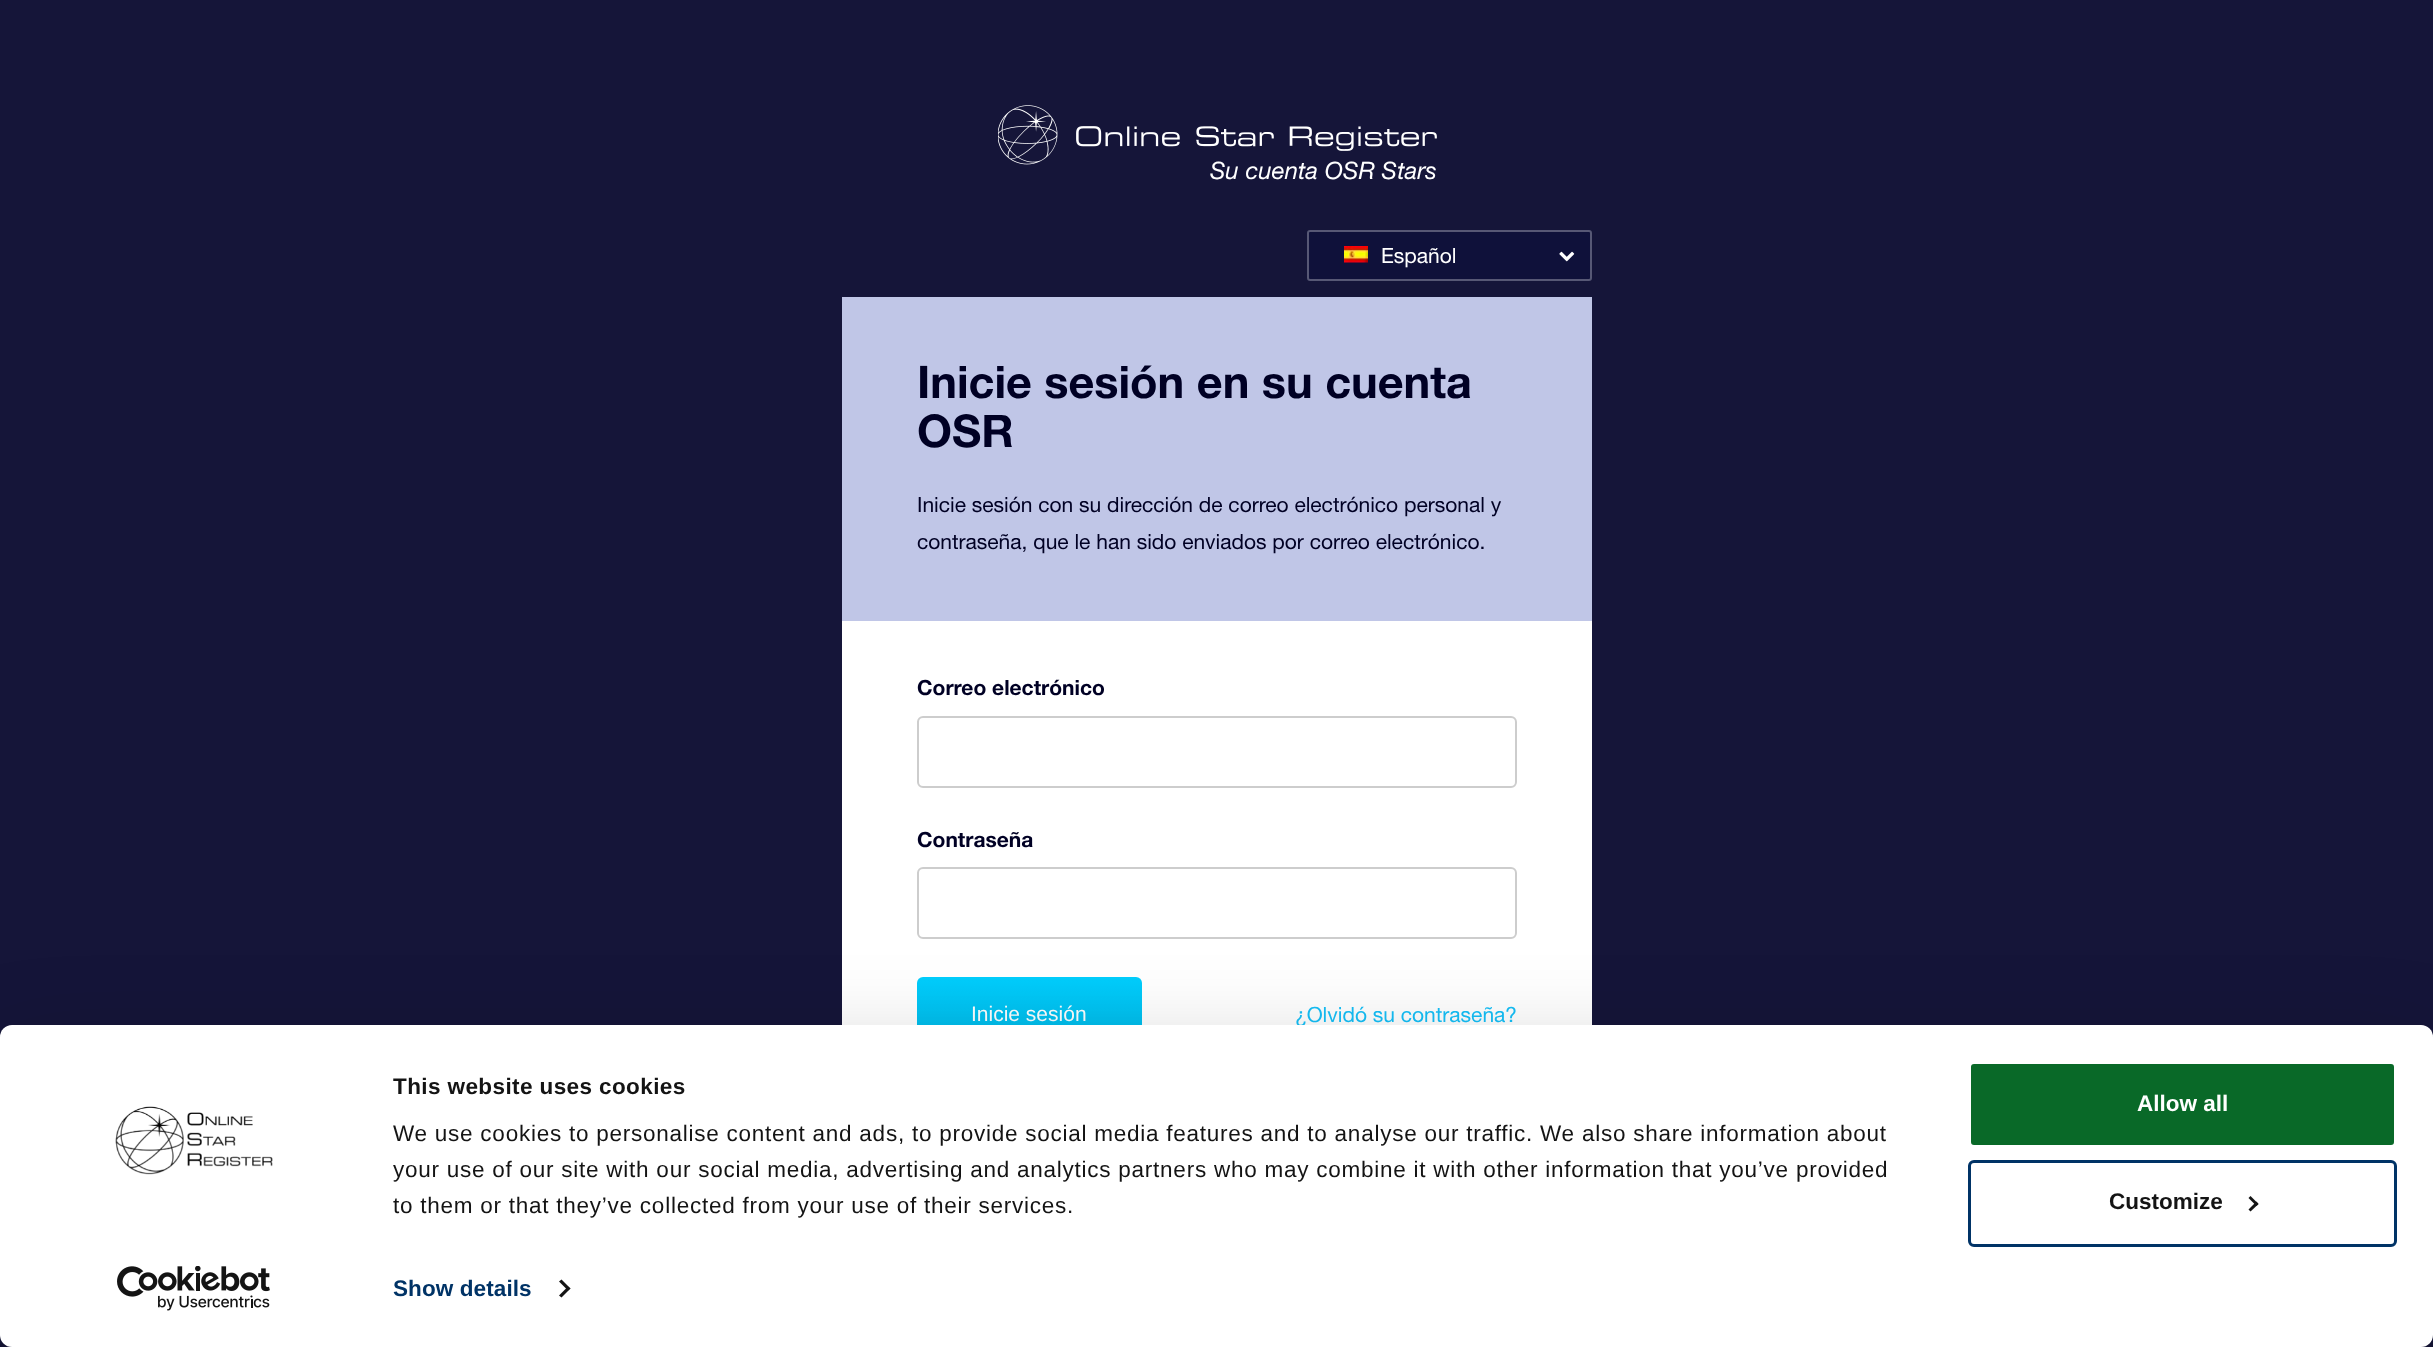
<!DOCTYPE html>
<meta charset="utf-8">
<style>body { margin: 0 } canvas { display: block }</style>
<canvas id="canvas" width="2433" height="1347"></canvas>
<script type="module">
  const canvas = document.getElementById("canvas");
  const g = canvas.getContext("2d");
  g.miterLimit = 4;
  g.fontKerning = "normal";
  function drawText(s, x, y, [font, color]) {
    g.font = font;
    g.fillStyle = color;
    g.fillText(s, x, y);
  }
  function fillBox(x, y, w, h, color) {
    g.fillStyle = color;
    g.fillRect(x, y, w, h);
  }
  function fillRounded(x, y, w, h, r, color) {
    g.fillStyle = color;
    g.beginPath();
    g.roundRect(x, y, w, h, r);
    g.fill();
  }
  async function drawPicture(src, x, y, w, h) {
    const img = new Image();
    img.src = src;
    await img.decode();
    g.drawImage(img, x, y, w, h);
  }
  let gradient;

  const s1 = ["italic 24px Helvetica Neue", "#FFFFFF"];
  const s2 = ["21px Helvetica Neue", "#FFFFFF"];
  const s3 = ["bold 45px Helvetica Neue", "#000024"];
  const s4 = ["21px Helvetica Neue", "#000024"];
  const s5 = ["bold 21px Helvetica Neue", "#000024"];
  const s6 = ["21px Helvetica Neue", "#15C0F8"];
  const s7 = ["21px Liberation Sans", "#FFFFFF"];
  const s8 = ["bold 22.5px Liberation Sans", "#141414"];
  const s9 = ["22.5px Liberation Sans", "#141414"];
  const s10 = ["bold 22.5px Liberation Sans", "#003366"];
  const s11 = ["bold 22.5px Liberation Sans", "#FFFFFF"];

  fillBox(0, 0, 2433, 1347, "#151539");
  await drawPicture("pic1.png", 998, 105, 439, 60);
  drawText("Su cuenta OSR Stars", 1210, 179, s1);
  fillRounded(1307, 230, 285, 51, 3, "#0F113A");
  g.beginPath();
  g.roundRect(1308, 231, 283, 49, 2);
  g.strokeStyle = "rgba(255, 255, 255, 0.3)";
  g.lineWidth = 2;
  g.stroke();
  await drawPicture("pic2.png", 1344, 246, 24, 17);
  drawText("Español", 1381, 263, s2);
  await drawPicture("pic3.png", 1559, 251, 16, 11);
  fillBox(842, 621, 750, 404, "#FFFFFF");
  fillBox(842, 297, 750, 324, "#C0C6E7");
  drawText("Inicie sesión en su cuenta", 917, 398, s3);
  drawText("OSR", 917, 447, s3);
  drawText("Inicie sesión con su dirección de correo electrónico personal y", 917, 512, s4);
  drawText("contraseña, que le han sido enviados por correo electrónico.", 917, 549, s4);
  drawText("Correo electrónico", 917, 695, s5);
  g.beginPath();
  g.roundRect(918, 717, 598, 70, 5);
  g.strokeStyle = "#CDCDCD";
  g.stroke();
  drawText("Contraseña", 917, 847, s5);
  g.beginPath();
  g.roundRect(918, 868, 598, 70, 5);
  g.stroke();
  drawText("¿Olvidó su contraseña?", 1295, 1022, s6);
  gradient = g.createLinearGradient(1029, 977, 1029, 1052);
  gradient.addColorStop(0, "#01CEFD");
  gradient.addColorStop(1, "#00B6E5");
  g.fillStyle = gradient;
  g.beginPath();
  g.roundRect(917, 977, 225, 75, 6);
  g.fill();
  drawText("Inicie sesión", 971, 1021, s7);
  g.fillStyle = "rgba(0, 0, 0, 0.3)";
  g.filter = "blur(52.5px)";
  g.beginPath();
  g.roundRect(0, 1070, 2433, 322, 12);
  g.fill();
  g.filter = "none";
  fillRounded(0, 1025, 2433, 322, 12, "#FFFFFF");
  await drawPicture("pic4.png", 115, 1106, 158, 69);
  await drawPicture("pic5.png", 117, 1266, 153, 45);
  g.letterSpacing = "0.4px";
  drawText("This website uses cookies", 393, 1094, s8);
  g.letterSpacing = "0.75px";
  drawText("We use cookies to personalise content and ads, to provide social media features and to analyse our traffic. We also share information about", 393, 1141, s9);
  drawText("your use of our site with our social media, advertising and analytics partners who may combine it with other information that you’ve provided", 393, 1177, s9);
  drawText("to them or that they’ve collected from your use of their services.", 393, 1213, s9);
  g.letterSpacing = "0.1px";
  drawText("Show details", 393, 1296, s10);
  g.fillStyle = "#141414";
  g.beginPath();
  g.moveTo(561.5, 1279.5);
  g.lineTo(570.5, 1288.5);
  g.lineTo(568, 1290.5);
  g.lineTo(559, 1281.5);
  g.closePath();
  g.fill();
  g.beginPath();
  g.moveTo(568, 1286.5);
  g.lineTo(570.5, 1288.5);
  g.lineTo(561.5, 1297.5);
  g.lineTo(559, 1295.5);
  g.closePath();
  g.fill();
  g.fillStyle = "#096928";
  g.beginPath();
  g.roundRect(1969.5, 1062.5, 426, 84, 4.5);
  g.fill();
  g.strokeStyle = "#FFFFFF";
  g.lineWidth = 3;
  g.stroke();
  g.letterSpacing = "0px";
  drawText("Allow all", 2137, 1111, s11);
  g.beginPath();
  g.roundRect(1969.5, 1161.5, 426, 84, 4.5);
  g.strokeStyle = "#003366";
  g.stroke();
  drawText("Customize", 2109, 1209, s8);
  g.beginPath();
  g.moveTo(2250.5, 1196);
  g.lineTo(2258.5, 1204);
  g.lineTo(2256.5, 1206);
  g.lineTo(2248.5, 1198);
  g.closePath();
  g.fill();
  g.beginPath();
  g.moveTo(2256.5, 1201.5);
  g.lineTo(2258.5, 1204);
  g.lineTo(2250.5, 1211.5);
  g.lineTo(2248.5, 1209.5);
  g.closePath();
  g.fill();
</script>
